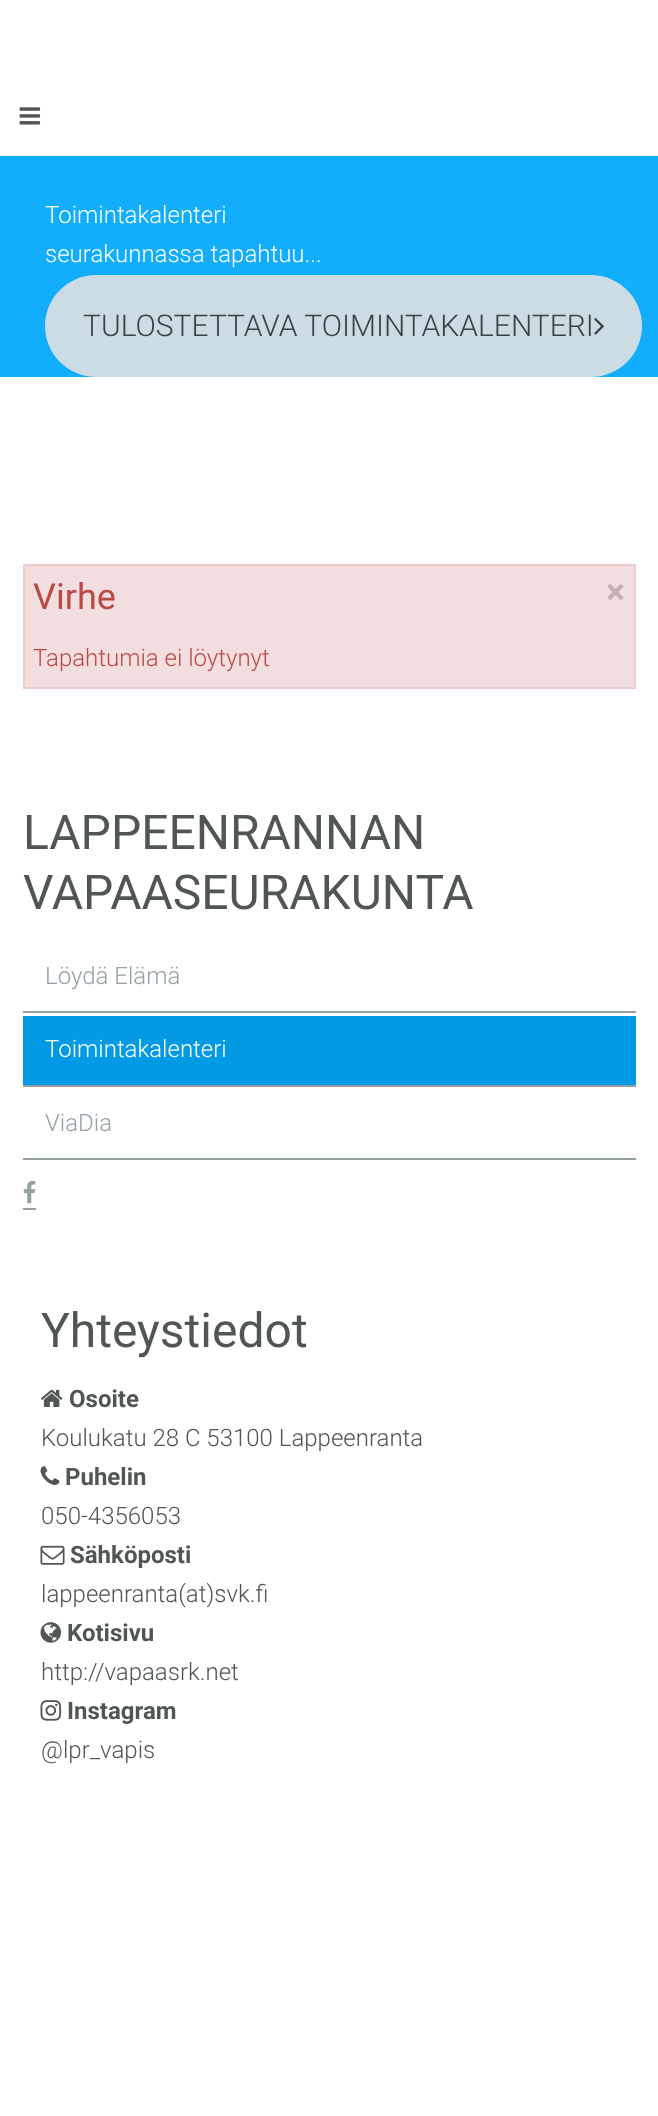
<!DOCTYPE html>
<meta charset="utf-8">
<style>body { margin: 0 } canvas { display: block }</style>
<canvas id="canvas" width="658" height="2116"></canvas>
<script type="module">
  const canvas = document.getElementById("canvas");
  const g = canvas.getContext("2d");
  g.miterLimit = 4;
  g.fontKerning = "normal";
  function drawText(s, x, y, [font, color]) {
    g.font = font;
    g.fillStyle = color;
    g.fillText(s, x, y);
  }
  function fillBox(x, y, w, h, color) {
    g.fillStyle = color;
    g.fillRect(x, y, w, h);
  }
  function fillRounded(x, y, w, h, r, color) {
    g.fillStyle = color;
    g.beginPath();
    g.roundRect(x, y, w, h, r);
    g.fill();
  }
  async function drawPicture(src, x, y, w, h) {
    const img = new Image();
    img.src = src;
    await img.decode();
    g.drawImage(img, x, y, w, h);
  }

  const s1 = ["300 24px Roboto", "#FFFFFF"];
  const s2 = ["300 30px Roboto", "#3D4045"];
  const s3 = ["36px Roboto", "#B94A48"];
  const s4 = ["bold 36px Roboto", "#C2B2B2"];
  const s5 = ["300 24px Roboto", "#B94A48"];
  const s6 = ["48px Roboto", "#505656"];
  const s7 = ["300 24px Roboto", "#96A1A3"];
  const s8 = ["bold 24px Roboto", "#505656"];
  const s9 = ["300 24px Roboto", "#505656"];

  fillBox(0, 0, 658, 2116, "#FFFFFF");
  await drawPicture("pic1.png", 19, 107, 22, 18);
  fillBox(0, 156, 658, 221, "#12AEFC");
  drawText("Toimintakalenteri", 45, 223, s1);
  drawText("seurakunnassa tapahtuu...", 45, 262, s1);
  fillRounded(45, 275, 597, 102, 51, "#CCDCE4");
  drawText("TULOSTETTAVA TOIMINTAKALENTERI", 83, 336, s2);
  await drawPicture("pic2.png", 594, 318, 10, 17);
  g.fillStyle = "#F2DEDE";
  g.beginPath();
  g.rect(24, 565, 611, 123);
  g.fill();
  g.strokeStyle = "#EBCCD1";
  g.lineWidth = 2;
  g.stroke();
  drawText("Virhe", 33, 609, s3);
  drawText("×", 606, 604, s4);
  drawText("Tapahtumia ei löytynyt", 33, 666, s5);
  drawText("LAPPEENRANNAN", 23, 849, s6);
  drawText("VAPAASEURAKUNTA", 23, 909, s6);
  fillBox(23, 1011, 613, 2, "#96A1A3");
  drawText("Löydä Elämä", 45, 984, s7);
  fillBox(23, 1016, 613, 69, "#039AE5");
  fillBox(23, 1085, 613, 2, "#96A1A3");
  drawText("Toimintakalenteri", 45, 1057, s1);
  fillBox(23, 1158, 613, 2, "#96A1A3");
  drawText("ViaDia", 45, 1131, s7);
  fillBox(23, 1208, 13, 2, "#96A1A3");
  await drawPicture("pic3.png", 23, 1180, 13, 24);
  drawText("Yhteystiedot", 41, 1347, s6);
  await drawPicture("pic4.png", 40, 1389, 23, 18);
  drawText("Osoite", 69, 1407, s8);
  drawText("Koulukatu 28 C 53100 Lappeenranta", 41, 1446, s9);
  await drawPicture("pic5.png", 40, 1466, 20, 19);
  drawText("Puhelin", 65, 1485, s8);
  drawText("050-4356053", 41, 1524, s9);
  await drawPicture("pic6.png", 40, 1545, 25, 20);
  drawText("Sähköposti", 70, 1563, s8);
  drawText("lappeenranta(at)svk.fi", 41, 1602, s9);
  await drawPicture("pic7.png", 40, 1622, 22, 21);
  drawText("Kotisivu", 67, 1641, s8);
  drawText("http://vapaasrk.net", 41, 1680, s9);
  await drawPicture("pic8.png", 40, 1700, 22, 21);
  drawText("Instagram", 67, 1719, s8);
  drawText("@lpr_vapis", 41, 1758, s9);
</script>
